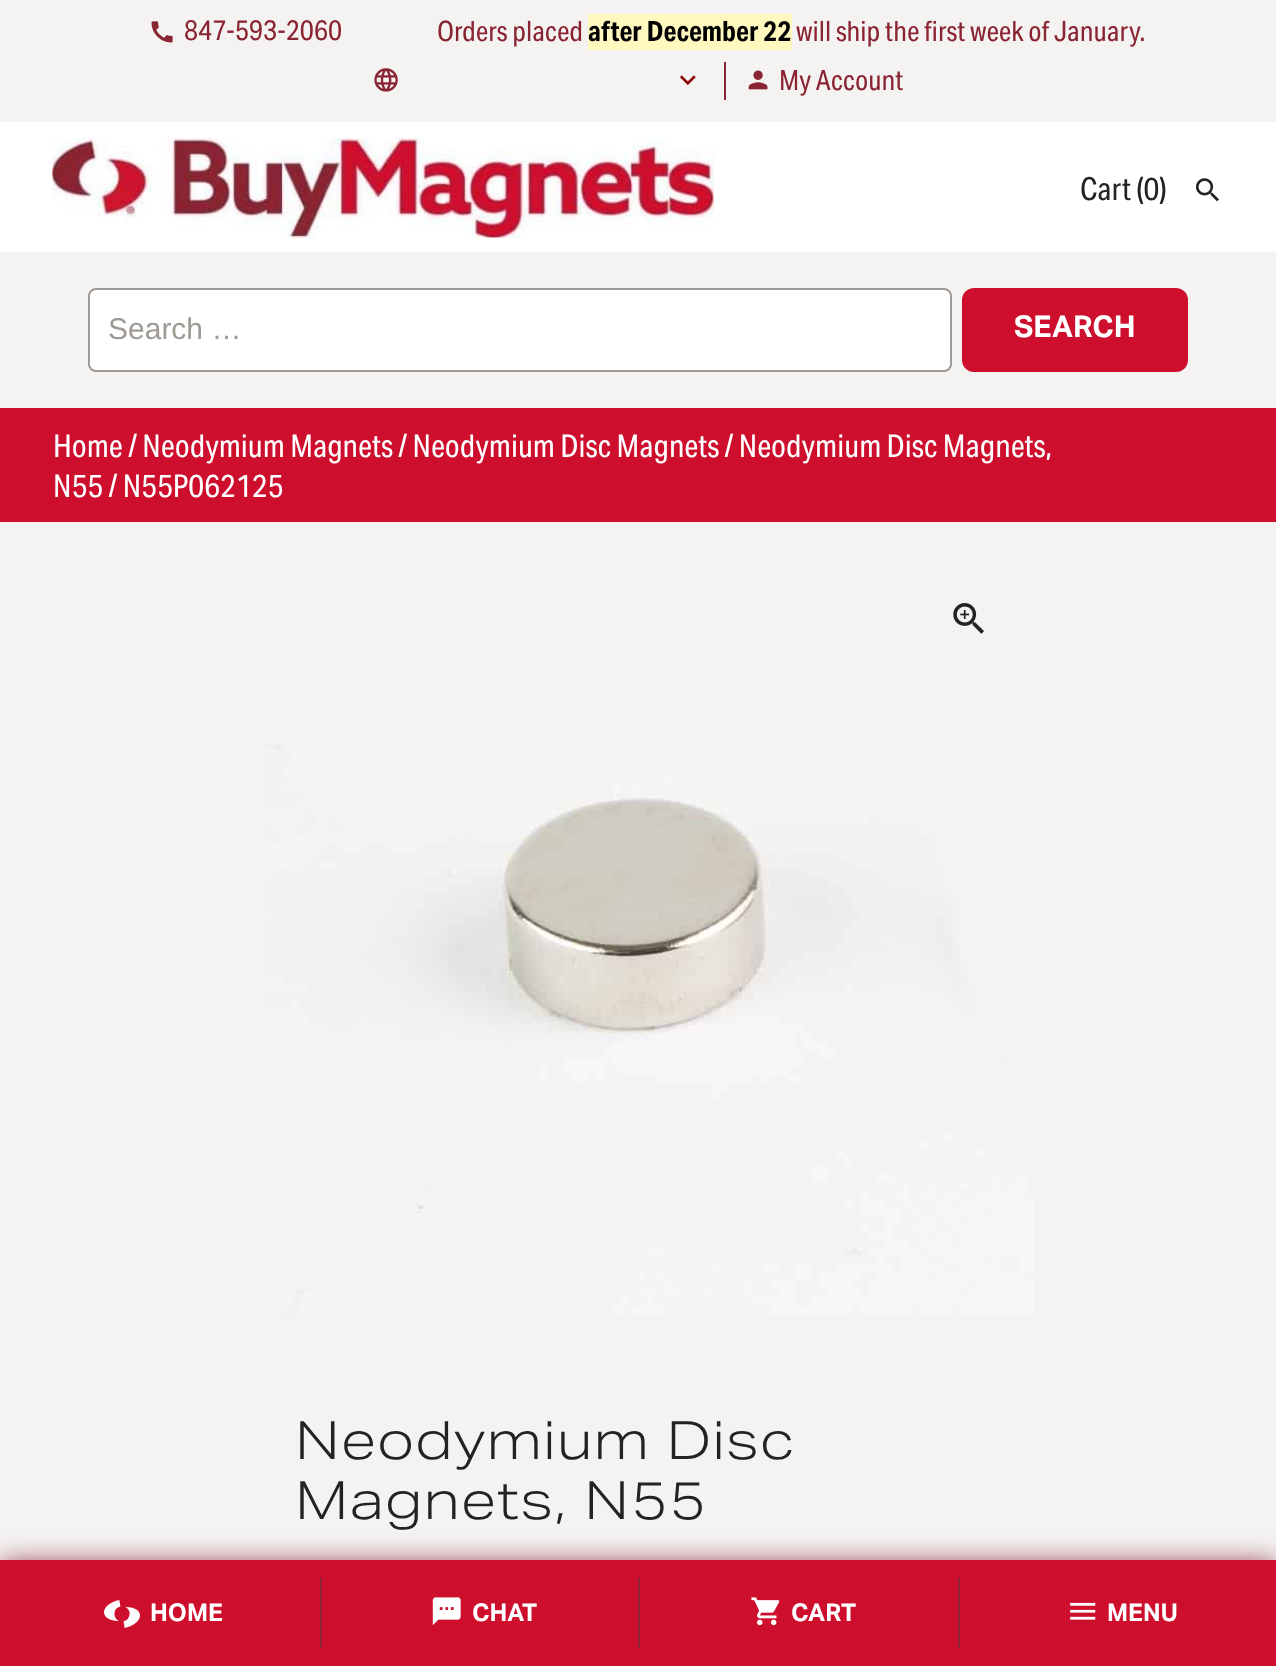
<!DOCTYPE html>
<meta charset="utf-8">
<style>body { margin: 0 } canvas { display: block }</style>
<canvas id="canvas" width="1276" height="1666"></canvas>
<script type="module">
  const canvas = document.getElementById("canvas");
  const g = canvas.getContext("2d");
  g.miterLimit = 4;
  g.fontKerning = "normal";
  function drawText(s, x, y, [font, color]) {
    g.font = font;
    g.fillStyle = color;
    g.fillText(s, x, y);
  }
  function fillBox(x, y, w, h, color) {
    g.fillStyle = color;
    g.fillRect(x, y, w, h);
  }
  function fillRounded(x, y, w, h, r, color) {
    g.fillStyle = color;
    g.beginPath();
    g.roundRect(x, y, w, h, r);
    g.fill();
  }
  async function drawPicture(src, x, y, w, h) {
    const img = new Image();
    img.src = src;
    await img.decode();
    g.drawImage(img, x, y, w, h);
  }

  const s1 = ["28.2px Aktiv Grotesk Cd", "#8A2432"];
  const s2 = ["bold 28.2px Aktiv Grotesk Cd", "#000000"];
  const s3 = ["31.7px Aktiv Grotesk Cd", "#242321"];
  const s4 = ["30px Liberation Sans", "#9F9A94"];
  const s5 = ["bold 30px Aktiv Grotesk", "#FFFFFF"];
  const s6 = ["31.7px Aktiv Grotesk Cd", "#FFFFFF"];
  const s7 = ["300 52.75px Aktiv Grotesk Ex", "#242321"];
  const s8 = ["bold 24.5px Aktiv Grotesk", "#FFFFFF"];

  fillBox(0, 0, 1276, 1666, "#F4F3F2");
  await drawPicture("pic1.png", 151, 21, 22, 22);
  drawText("847-593-2060", 184, 40, s1);
  drawText("Orders placed", 437, 41, s1);
  fillBox(588, 14, 204, 36, "#FFF9C0");
  drawText("after December 22", 588, 41, s2);
  drawText("will ship the first week of January.", 796, 41, s1);
  await drawPicture("pic2.png", 374, 68, 24, 24);
  await drawPicture("pic3.png", 680, 75, 16, 10);
  fillBox(724, 62, 2, 38, "#8A2432");
  await drawPicture("pic4.png", 748, 70, 20, 20);
  drawText("My Account", 779, 90, s1);
  fillBox(0, 122, 1276, 130, "#FFFFFF");
  await drawPicture("pic5.png", 52, 138, 662, 100);
  drawText("Cart (0)", 1080, 200, s3);
  await drawPicture("pic6.png", 1196, 178, 23, 24);
  g.fillStyle = "#FFFFFF";
  g.beginPath();
  g.roundRect(89, 289, 862, 82, 7);
  g.fill();
  g.strokeStyle = "#9F9A94";
  g.lineWidth = 2;
  g.stroke();
  drawText("Search …", 108, 339, s4);
  fillRounded(962, 288, 226, 84, 12, "#CE0E2D");
  drawText("SEARCH", 1014, 337, s5);
  fillBox(0, 408, 1276, 114, "#CE0E2D");
  drawText("Home / Neodymium Magnets / Neodymium Disc Magnets / Neodymium Disc Magnets,", 53, 457, s6);
  drawText("N55 / N55P062125", 53, 497, s6);
  await drawPicture("pic7.png", 953, 603, 31, 31);
  await drawPicture("pic8.png", 267, 745, 767, 569);
  g.letterSpacing = "1.4px";
  drawText("Neodymium Disc", 295, 1459, s7);
  drawText("Magnets, N55", 295, 1519, s7);
  g.fillStyle = "#8A2432";
  g.filter = "blur(14px)";
  g.beginPath();
  g.rect(0, 1564, 1276, 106);
  g.fill();
  g.filter = "none";
  fillBox(0, 1560, 1276, 106, "#CE0E2D");
  await drawPicture("pic9.png", 104, 1600, 36, 28);
  g.letterSpacing = "0px";
  drawText("HOME", 150, 1621, s8);
  fillBox(320, 1578, 2, 70, "#8A2432");
  await drawPicture("pic10.png", 432, 1597, 29, 28);
  drawText("CHAT", 472, 1621, s8);
  fillBox(638, 1578, 2, 70, "#8A2432");
  await drawPicture("pic11.png", 751, 1597, 29, 29);
  drawText("CART", 791, 1621, s8);
  fillBox(958, 1578, 2, 70, "#8A2432");
  await drawPicture("pic12.png", 1070, 1602, 26, 18);
  drawText("MENU", 1107, 1621, s8);
</script>
